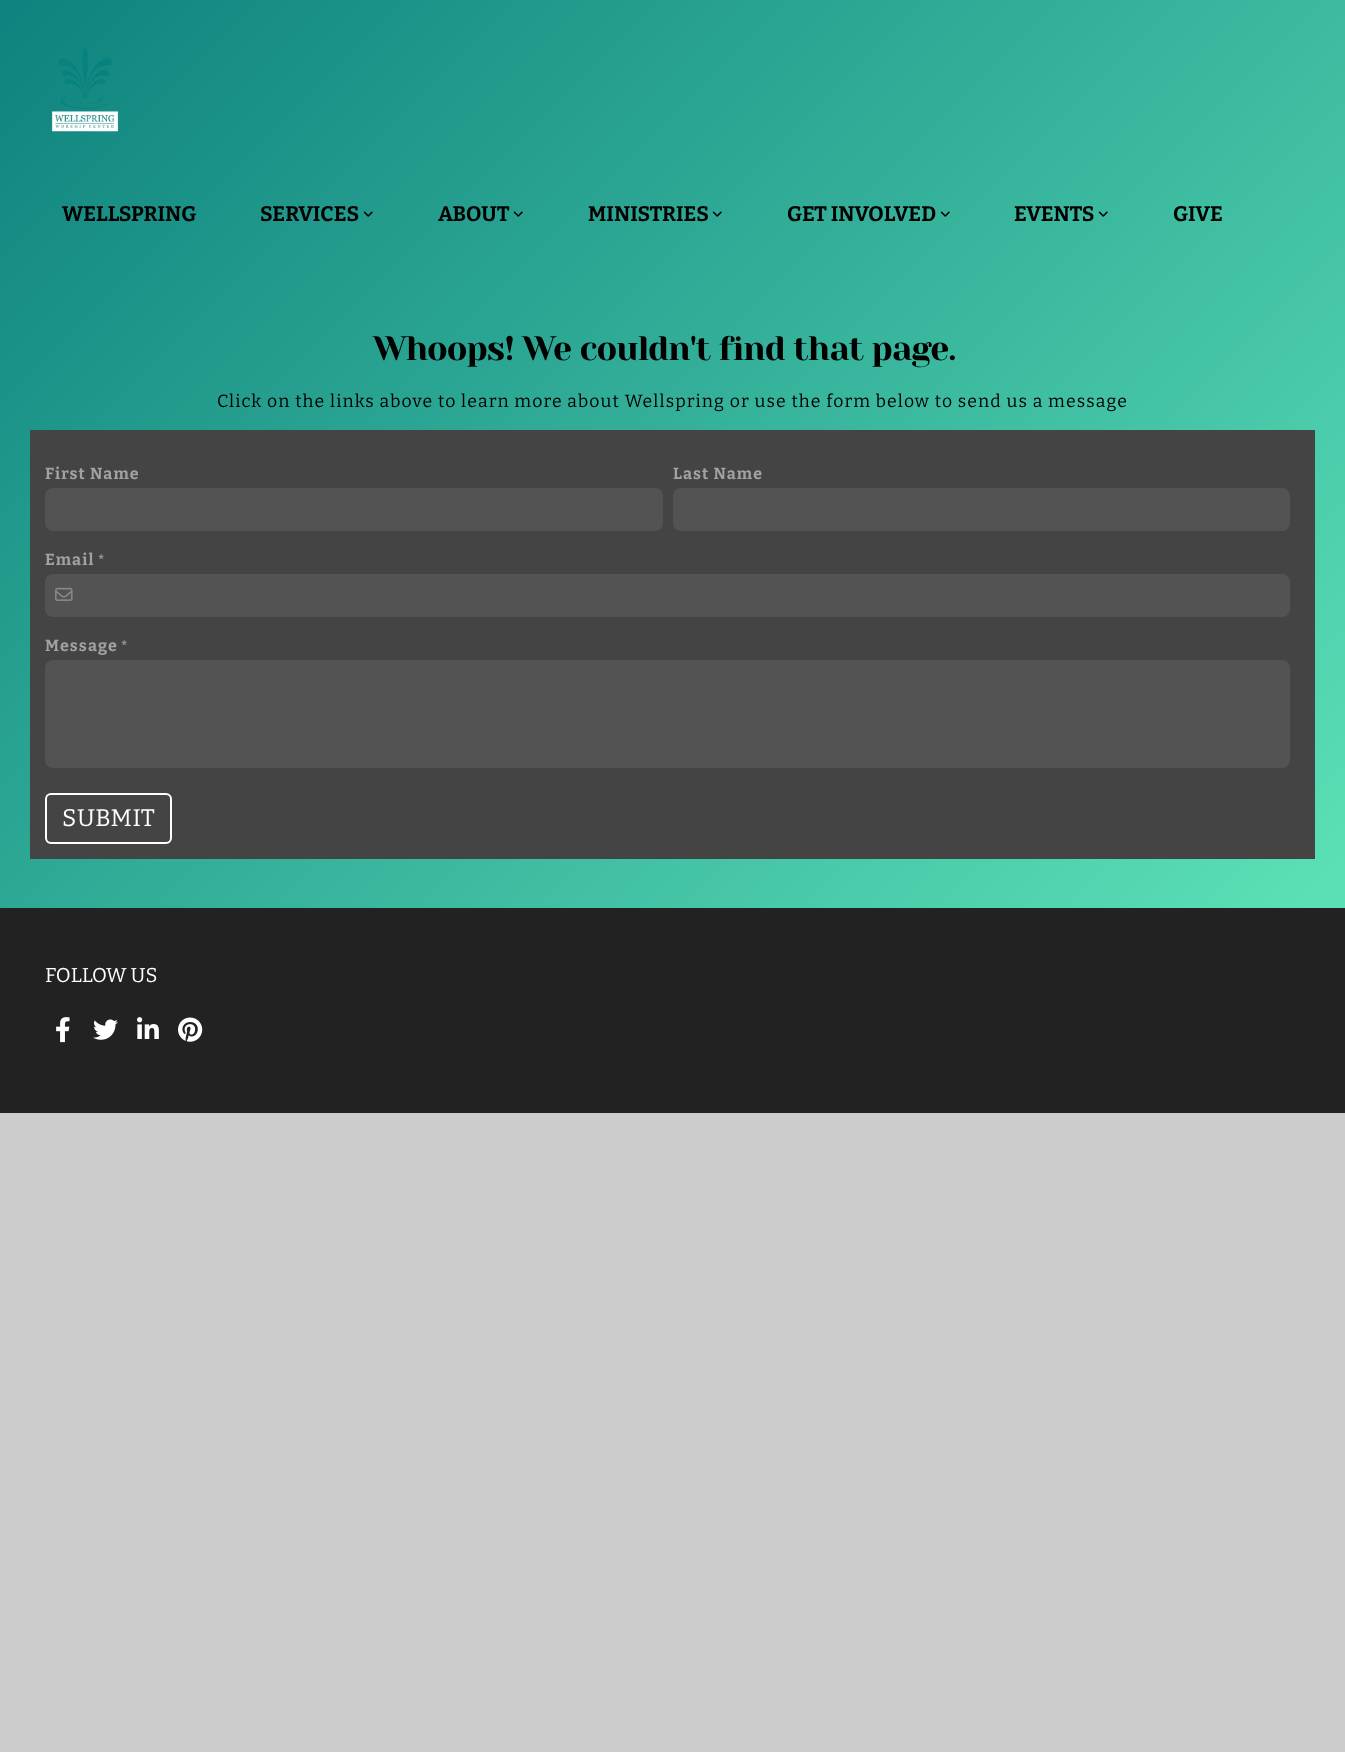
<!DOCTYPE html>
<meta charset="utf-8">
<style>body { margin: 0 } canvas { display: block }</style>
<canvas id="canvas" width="1345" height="1752"></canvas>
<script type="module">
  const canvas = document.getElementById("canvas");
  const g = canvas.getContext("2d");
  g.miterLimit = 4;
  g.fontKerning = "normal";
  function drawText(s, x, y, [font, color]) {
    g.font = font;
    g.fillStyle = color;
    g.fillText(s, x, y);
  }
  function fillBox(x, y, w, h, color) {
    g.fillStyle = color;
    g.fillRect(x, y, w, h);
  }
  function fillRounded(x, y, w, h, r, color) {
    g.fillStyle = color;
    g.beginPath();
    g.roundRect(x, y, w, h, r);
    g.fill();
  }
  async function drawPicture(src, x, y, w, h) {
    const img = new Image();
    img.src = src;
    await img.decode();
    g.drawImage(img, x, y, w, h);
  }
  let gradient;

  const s1 = ["bold 21px Bitter", "#000000"];
  const s2 = ["34px Yeseva One", "#000000"];
  const s3 = ["17.6px Bitter", "#000000"];
  const s4 = ["bold 16px Bitter", "#A2A2A2"];
  const s5 = ["bold 14px Bitter", "#A2A2A2"];
  const s6 = ["24px Bitter", "#FFFFFF"];
  const s7 = ["20px Bitter", "#FFFFFF"];

  fillBox(0, 0, 1345, 1752, "#CCCCCC");
  gradient = g.createLinearGradient(109, -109, 1236, 1018);
  gradient.addColorStop(0, "#0E827E");
  gradient.addColorStop(1, "#5CE1B7");
  g.fillStyle = gradient;
  g.fillRect(0, 0, 1345, 908);
  await drawPicture("pic1.png", 51, 48, 68, 84);
  drawText("WELLSPRING", 62, 221, s1);
  drawText("SERVICES", 260, 221, s1);
  await drawPicture("pic2.png", 363, 211, 10, 6);
  drawText("ABOUT", 438, 221, s1);
  await drawPicture("pic3.png", 513, 211, 10, 6);
  drawText("MINISTRIES", 588, 221, s1);
  await drawPicture("pic4.png", 712, 211, 10, 6);
  drawText("GET INVOLVED", 787, 221, s1);
  await drawPicture("pic5.png", 940, 211, 10, 6);
  drawText("EVENTS", 1014, 221, s1);
  await drawPicture("pic6.png", 1098, 211, 10, 6);
  drawText("GIVE", 1173, 221, s1);
  g.letterSpacing = "-1px";
  drawText("Whoops! We couldn't find that page.", 373, 360, s2);
  g.letterSpacing = "1.12px";
  drawText("Click on the links above to learn more about Wellspring or use the form below to send us a message", 217, 407, s3);
  fillBox(30, 430, 1285, 429, "#444444");
  drawText("First Name", 45, 479, s4);
  fillRounded(45, 488, 618, 43, 8, "#535353");
  drawText("Last Name", 673, 479, s4);
  fillRounded(673, 488, 617, 43, 8, "#535353");
  drawText("Email", 45, 565, s4);
  drawText("*", 98, 565, s5);
  fillRounded(45, 574, 1245, 43, 8, "#535353");
  await drawPicture("pic7.png", 55, 587, 18, 14);
  drawText("Message", 45, 651, s4);
  drawText("*", 121, 651, s5);
  fillRounded(45, 660, 1245, 108, 8, "#535353");
  g.beginPath();
  g.roundRect(46, 794, 125, 49, 5);
  g.strokeStyle = "#FFFFFF";
  g.lineWidth = 2;
  g.stroke();
  g.letterSpacing = "0.5px";
  drawText("SUBMIT", 62, 826, s6);
  fillBox(0, 908, 1345, 205, "#222222");
  g.letterSpacing = "0px";
  drawText("FOLLOW US", 45, 982, s7);
  await drawPicture("pic8.png", 56, 1017, 14, 26);
  await drawPicture("pic9.png", 93, 1019, 25, 21);
  await drawPicture("pic10.png", 137, 1017, 22, 22);
  await drawPicture("pic11.png", 178, 1017, 25, 25);
</script>
